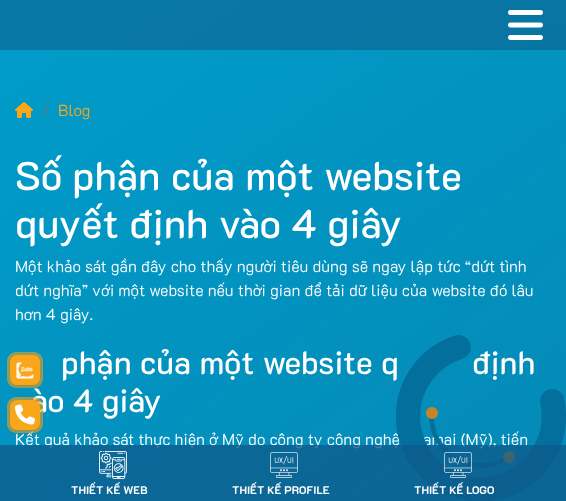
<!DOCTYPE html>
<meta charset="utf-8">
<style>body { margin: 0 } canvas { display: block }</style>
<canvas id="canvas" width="566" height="501"></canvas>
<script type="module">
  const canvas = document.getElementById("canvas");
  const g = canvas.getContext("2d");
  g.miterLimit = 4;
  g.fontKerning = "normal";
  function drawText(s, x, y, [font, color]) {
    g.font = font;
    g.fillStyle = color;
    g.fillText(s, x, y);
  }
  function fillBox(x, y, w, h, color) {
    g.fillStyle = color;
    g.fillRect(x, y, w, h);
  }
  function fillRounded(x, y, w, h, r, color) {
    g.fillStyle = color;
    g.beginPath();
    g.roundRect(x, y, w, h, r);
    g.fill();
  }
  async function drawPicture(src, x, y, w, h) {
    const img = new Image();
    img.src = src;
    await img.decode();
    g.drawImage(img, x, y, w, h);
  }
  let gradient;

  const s1 = ["300 16px 'K2D'", "#6C757D"];
  const s2 = ["300 16px 'K2D'", "#FAA61A"];
  const s3 = ["500 40px 'K2D'", "#FFFFFF"];
  const s4 = ["300 16px 'K2D'", "#FFFFFF"];
  const s5 = ["500 32px 'K2D'", "#FFFFFF"];
  const s6 = ["bold 11px 'K2D'", "#FFFFFF"];

  fillBox(0, 0, 566, 501, "#FFFFFF");
  gradient = g.createLinearGradient(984, 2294, -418, 293);
  gradient.addColorStop(0, "#0F5B89");
  gradient.addColorStop(1, "#009DCA");
  g.fillStyle = gradient;
  g.fillRect(0, 50, 566, 451);
  gradient = g.createLinearGradient(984, 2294, -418, 293);
  gradient.addColorStop(0, "#0F5A89");
  gradient.addColorStop(1, "#0879A7");
  g.fillStyle = gradient;
  g.fillRect(0, 0, 566, 50);
  await drawPicture("pic1.png", 15, 102, 18, 16);
  drawText("/", 41, 116, s1);
  drawText("Blog", 58, 116, s2);
  drawText("Số phận của một website", 15, 190, s3);
  drawText("quyết định vào 4 giây", 15, 238, s3);
  drawText("Một khảo sát gần đây cho thấy người tiêu dùng sẽ ngay lập tức “dứt tình", 15, 272, s4);
  drawText("dứt nghĩa” với một website nếu thời gian để tải dữ liệu của website đó lâu", 15, 296, s4);
  drawText("hơn 4 giây.", 15, 320, s4);
  drawText("phận của một website q", 61, 374, s5);
  drawText("định", 472, 374, s5);
  drawText("ào 4 giây", 31, 412, s5);
  drawText("Kết quả khảo sát thực hiện ở Mỹ do công ty công nghệ", 15, 445, s4);
  drawText("amai (Mỹ), tiến", 423, 445, s4);
  await drawPicture("pic2.png", 396, 335, 170, 166);
  await drawPicture("pic3.png", 508, 10, 35, 30);
  fillBox(0, 445, 566, 56, "rgba(15, 90, 137, 0.75)");
  await drawPicture("pic4.png", 99, 451, 28, 28);
  drawText("THIẾT KẾ WEB", 71, 494, s6);
  await drawPicture("pic5.png", 270, 452, 28, 26);
  drawText("THIẾT KẾ PROFILE", 232, 494, s6);
  await drawPicture("pic6.png", 444, 452, 28, 26);
  drawText("THIẾT KẾ LOGO", 414, 494, s6);
  fillRounded(7, 352, 36, 36, 9, "rgba(250, 166, 26, 0.6)");
  g.fillStyle = "rgba(0, 0, 0, 0.1)";
  g.filter = "blur(2.5px)";
  g.beginPath();
  g.roundRect(10, 356, 30, 30, 7);
  g.fill();
  g.filter = "none";
  fillRounded(10, 355, 30, 30, 7, "#FAA61A");
  await drawPicture("pic7.png", 16, 361, 18, 18);
  fillRounded(7, 397, 36, 36, 9, "rgba(250, 166, 26, 0.6)");
  g.fillStyle = "rgba(0, 0, 0, 0.1)";
  g.filter = "blur(2.5px)";
  g.beginPath();
  g.roundRect(10, 401, 30, 30, 7);
  g.fill();
  g.filter = "none";
  fillRounded(10, 400, 30, 30, 7, "#FAA61A");
  await drawPicture("pic8.png", 15, 404, 20, 21);
</script>
